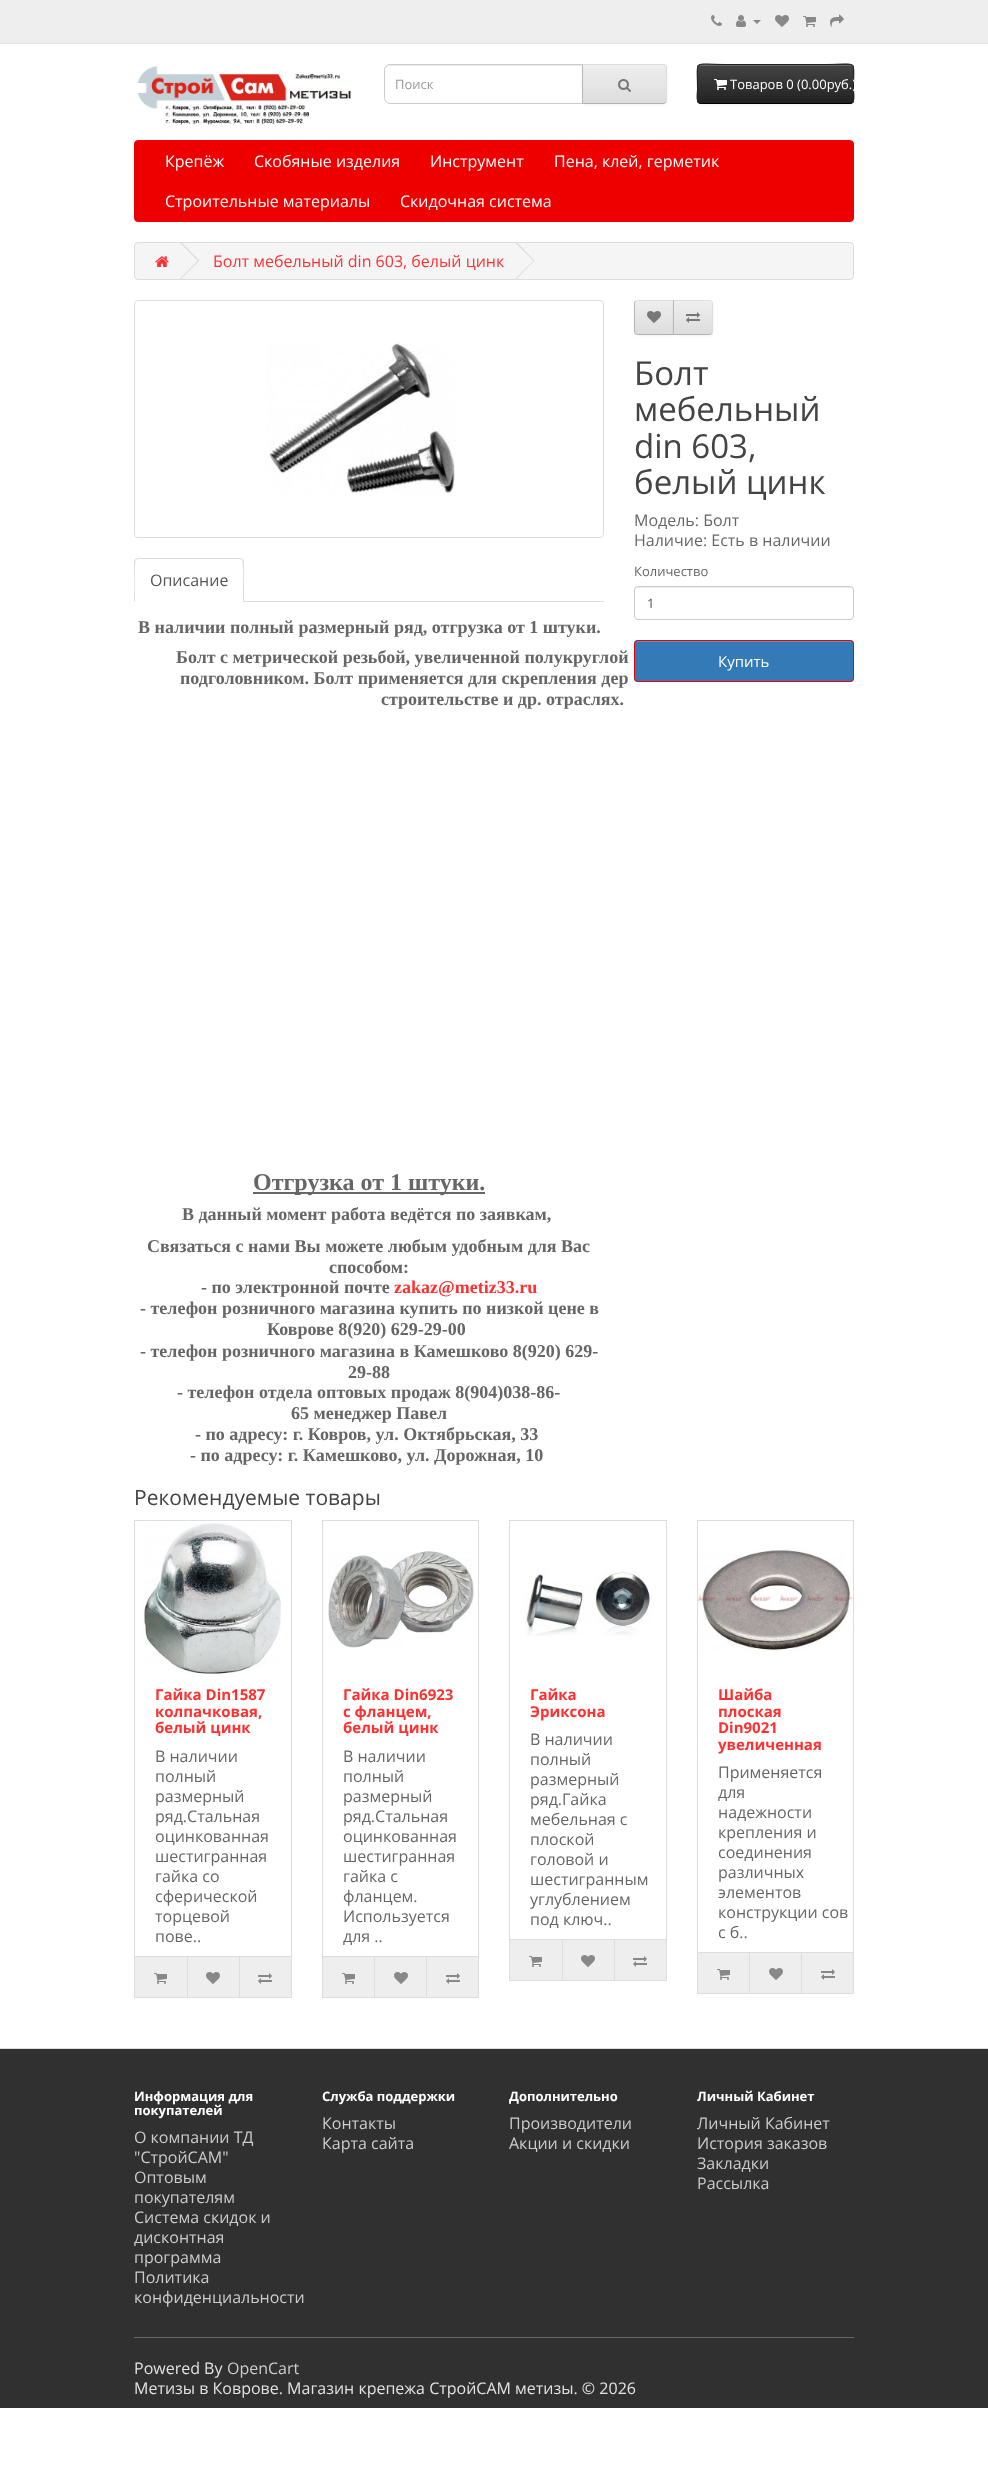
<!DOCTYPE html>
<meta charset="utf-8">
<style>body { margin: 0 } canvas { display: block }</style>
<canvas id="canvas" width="988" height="2477"></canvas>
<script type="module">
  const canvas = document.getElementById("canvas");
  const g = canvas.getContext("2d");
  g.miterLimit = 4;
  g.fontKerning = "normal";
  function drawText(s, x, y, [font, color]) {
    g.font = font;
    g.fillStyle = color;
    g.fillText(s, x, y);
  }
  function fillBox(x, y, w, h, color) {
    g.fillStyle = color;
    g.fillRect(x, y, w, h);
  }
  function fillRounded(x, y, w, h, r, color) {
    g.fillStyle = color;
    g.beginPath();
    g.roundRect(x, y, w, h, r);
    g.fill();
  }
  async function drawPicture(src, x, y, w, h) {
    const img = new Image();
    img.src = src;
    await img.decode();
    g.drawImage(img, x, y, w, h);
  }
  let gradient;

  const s1 = ["13px Open Sans", "#999999"];
  const s2 = ["13px Open Sans", "#FFFFFF"];
  const s3 = ["16px Open Sans", "#FFFFFF"];
  const s4 = ["16px Open Sans", "#FF3030"];
  const s5 = ["33px Open Sans", "#444444"];
  const s6 = ["16px Open Sans", "#666666"];
  const s7 = ["13px Open Sans", "#666666"];
  const s8 = ["13px Open Sans", "#555555"];
  const s9 = ["15px Open Sans", "#FFFFFF"];
  const s10 = ["16px Open Sans", "#555555"];
  const s11 = ["bold 18px Liberation Serif", "#666666"];
  const s12 = ["bold 24px Liberation Serif", "#666666"];
  const s13 = ["bold 18px Liberation Serif", "#FF3030"];
  const s14 = ["21px Open Sans", "#444444"];
  const s15 = ["bold 15px Open Sans", "#FF3030"];
  const s16 = ["bold 13px Open Sans", "#FFFFFF"];
  const s17 = ["16px Open Sans", "#CCCCCC"];
  const s18 = ["16px Open Sans", "#E2E2E2"];

  fillBox(0, 0, 988, 2477, "#FFFFFF");
  fillBox(0, 0, 988, 43, "#EEEEEE");
  fillBox(0, 43, 988, 1, "#E2E2E2");
  await drawPicture("pic1.png", 711, 15, 11, 11);
  await drawPicture("pic2.png", 736, 15, 10, 12);
  g.fillStyle = "#888888";
  g.beginPath();
  g.moveTo(753, 20);
  g.lineTo(761, 20);
  g.lineTo(757, 24);
  g.closePath();
  g.fill();
  await drawPicture("pic3.png", 775, 15, 14, 12);
  await drawPicture("pic4.png", 803, 16, 13, 11);
  await drawPicture("pic5.png", 830, 14, 14, 13);
  await drawPicture("pic6.png", 137, 66, 214, 59);
  g.fillStyle = "#ECECEC";
  g.beginPath();
  g.moveTo(390, 66);
  g.lineTo(582, 66);
  g.lineTo(582, 65);
  g.lineTo(389, 65);
  g.bezierCurveTo(386, 66, 385, 68, 385, 71);
  g.bezierCurveTo(385, 68, 387, 66, 390, 66);
  g.closePath();
  g.fill();
  g.beginPath();
  g.roundRect(384.5, 64.5, 198, 39, [5.5, 0, 0, 5.5]);
  g.strokeStyle = "#CCCCCC";
  g.stroke();
  drawText("Поиск", 395, 89, s1);
  g.fillStyle = "rgba(0, 0, 0, 0.05)";
  g.filter = "blur(1px)";
  g.beginPath();
  g.roundRect(582, 65, 85, 40, 4);
  g.fill();
  g.filter = "none";
  g.fillStyle = "#E7E7E7";
  g.beginPath();
  g.roundRect(582, 64, 85, 40, [0, 4, 4, 0]);
  g.fill();
  g.save();
  g.beginPath();
  g.roundRect(582, 64, 85, 40, [0, 4, 4, 0]);
  g.clip();
  gradient = g.createLinearGradient(625, 65, 625, 103);
  gradient.addColorStop(0, "#EEEEEE");
  gradient.addColorStop(1, "#DDDDDD");
  g.fillStyle = gradient;
  g.fillRect(583, 65, 84, 38);
  g.restore();
  g.fillStyle = "#F1F1F1";
  g.beginPath();
  g.moveTo(583, 66);
  g.lineTo(663, 66);
  g.bezierCurveTo(665, 66, 666, 67, 666, 69);
  g.lineTo(666, 68);
  g.bezierCurveTo(666, 66, 665, 65, 663, 65);
  g.lineTo(583, 65);
  g.closePath();
  g.fill();
  g.fillStyle = "#DDDDDD";
  g.beginPath();
  g.moveTo(582, 64);
  g.lineTo(583, 65);
  g.lineTo(664, 65);
  g.lineTo(665, 66);
  g.lineTo(666, 65);
  g.lineTo(663, 64);
  g.closePath();
  g.fill();
  g.beginPath();
  g.moveTo(667, 100);
  g.lineTo(667, 68);
  g.bezierCurveTo(667, 67, 666.5, 66, 666, 65);
  g.lineTo(665, 66);
  g.bezierCurveTo(666, 66, 666, 67, 666, 68);
  g.lineTo(666, 100);
  g.bezierCurveTo(666, 101, 666, 102, 665, 102);
  g.lineTo(666, 103);
  g.bezierCurveTo(666.5, 102, 667, 101, 667, 100);
  g.closePath();
  g.fill();
  g.fillStyle = "#B3B3B3";
  g.beginPath();
  g.moveTo(663, 104);
  g.lineTo(666, 103);
  g.lineTo(665, 102);
  g.lineTo(664, 103);
  g.lineTo(583, 103);
  g.lineTo(582, 104);
  g.closePath();
  g.fill();
  g.fillStyle = "#B7B7B7";
  g.beginPath();
  g.moveTo(582, 64);
  g.lineTo(582, 104);
  g.lineTo(583, 103);
  g.lineTo(583, 65);
  g.closePath();
  g.fill();
  await drawPicture("pic7.png", 618, 79, 13, 13);
  g.fillStyle = "rgba(0, 0, 0, 0.05)";
  g.filter = "blur(1px)";
  g.beginPath();
  g.roundRect(697, 65, 157, 40, 4);
  g.fill();
  g.filter = "none";
  fillRounded(697, 64, 157, 40, 4, "#363636");
  g.save();
  g.beginPath();
  g.roundRect(697, 64, 157, 40, 4);
  g.clip();
  gradient = g.createLinearGradient(776, 65, 776, 103);
  gradient.addColorStop(0, "#444444");
  gradient.addColorStop(1, "#222222");
  g.fillStyle = gradient;
  g.fillRect(697, 65, 157, 38);
  g.restore();
  g.fillStyle = "rgba(255, 255, 255, 0.2)";
  g.beginPath();
  g.moveTo(701, 66);
  g.lineTo(850, 66);
  g.bezierCurveTo(852, 66, 853, 67, 853, 69);
  g.bezierCurveTo(853, 67, 853, 66, 851, 65);
  g.lineTo(726, 65);
  g.bezierCurveTo(718, 65, 698, 60, 698, 69);
  g.bezierCurveTo(698, 67, 699, 66, 701, 66);
  g.closePath();
  g.fill();
  g.beginPath();
  g.moveTo(852.5, 102.5);
  g.bezierCurveTo(852, 103, 851, 103.5, 850, 103.5);
  g.lineTo(701, 103.5);
  g.bezierCurveTo(700, 103.5, 699, 103, 698.5, 102.5);
  g.strokeStyle = "#000000";
  g.stroke();
  g.beginPath();
  g.moveTo(698.5, 102.5);
  g.bezierCurveTo(696, 100, 697.5, 92, 697.5, 89.5);
  g.bezierCurveTo(697.5, 58, 692, 64.5, 726, 64.5);
  g.lineTo(825, 64.5);
  g.bezierCurveTo(859, 64.5, 853.5, 58, 853.5, 89.5);
  g.bezierCurveTo(853.5, 92, 855, 100, 852.5, 102.5);
  g.strokeStyle = "#222222";
  g.stroke();
  await drawPicture("pic8.png", 714, 79, 13, 11);
  drawText("Товаров 0 (0.00руб.)", 730, 89, s2);
  g.fillStyle = "#EE0000";
  g.beginPath();
  g.roundRect(134.5, 140.5, 719, 81, 3.5);
  g.fill();
  g.strokeStyle = "#EE0000";
  g.stroke();
  drawText("Крепёж", 165, 167, s3);
  drawText("Скобяные изделия", 254, 167, s3);
  drawText("Инструмент", 430, 167, s3);
  drawText("Пена, клей, герметик", 554, 167, s3);
  drawText("Строительные материалы", 165, 207, s3);
  drawText("Скидочная система", 400, 207, s3);
  g.fillStyle = "#F5F5F5";
  g.beginPath();
  g.roundRect(134.5, 242.5, 719, 37, 3.5);
  g.fill();
  g.strokeStyle = "#DDDDDD";
  g.stroke();
  await drawPicture("pic9.png", 155, 256, 14, 11);
  g.fillStyle = "#DDDDDD";
  g.beginPath();
  g.moveTo(180, 243);
  g.lineTo(181, 242);
  g.lineTo(199.5, 260.5);
  g.lineTo(198.5, 261.5);
  g.closePath();
  g.fill();
  g.beginPath();
  g.moveTo(180, 278.5);
  g.lineTo(198.5, 260);
  g.lineTo(199.5, 260.5);
  g.lineTo(181, 279);
  g.closePath();
  g.fill();
  drawText("Болт мебельный din 603, белый цинк", 213, 267, s4);
  g.fillStyle = "#DDDDDD";
  g.beginPath();
  g.moveTo(515.5, 243);
  g.lineTo(516.5, 242);
  g.lineTo(534.5, 260.5);
  g.lineTo(534, 261.5);
  g.closePath();
  g.fill();
  g.beginPath();
  g.moveTo(515.5, 278.5);
  g.lineTo(534, 260);
  g.lineTo(534.5, 260.5);
  g.lineTo(516.5, 279);
  g.closePath();
  g.fill();
  g.fillStyle = "rgba(0, 0, 0, 0.05)";
  g.filter = "blur(1px)";
  g.beginPath();
  g.roundRect(634, 301, 40, 35, 4);
  g.fill();
  g.filter = "none";
  g.save();
  g.beginPath();
  g.roundRect(634, 300, 40, 35, [4, 0, 0, 4]);
  g.clip();
  gradient = g.createLinearGradient(654, 301, 654, 334);
  gradient.addColorStop(0, "#EEEEEE");
  gradient.addColorStop(1, "#DDDDDD");
  g.fillStyle = gradient;
  g.fillRect(634, 301, 39, 33);
  g.restore();
  g.fillStyle = "#F1F1F1";
  g.beginPath();
  g.moveTo(638, 302);
  g.lineTo(673, 302);
  g.lineTo(673, 301);
  g.lineTo(638, 301);
  g.bezierCurveTo(636.5, 301, 635, 302.5, 635, 304);
  g.lineTo(635, 305);
  g.bezierCurveTo(635, 303, 636, 302, 638, 302);
  g.closePath();
  g.fill();
  g.fillStyle = "#DDDDDD";
  g.beginPath();
  g.moveTo(638, 300);
  g.bezierCurveTo(637, 300, 636, 300.5, 635, 301);
  g.lineTo(636, 302);
  g.bezierCurveTo(636, 301, 637, 301, 638, 301);
  g.lineTo(673, 301);
  g.lineTo(674, 300);
  g.closePath();
  g.fill();
  g.fillStyle = "#B3B3B3";
  g.beginPath();
  g.moveTo(674, 335);
  g.lineTo(673, 334);
  g.lineTo(638, 334);
  g.bezierCurveTo(637, 334, 636, 334, 636, 333);
  g.lineTo(635, 334);
  g.bezierCurveTo(636, 334.5, 637, 335, 638, 335);
  g.closePath();
  g.fill();
  g.fillStyle = "#B7B7B7";
  g.beginPath();
  g.moveTo(634, 304);
  g.lineTo(634, 331);
  g.bezierCurveTo(634, 332, 634.5, 333, 635, 334);
  g.lineTo(636, 333);
  g.bezierCurveTo(635, 333, 635, 332, 635, 331);
  g.lineTo(635, 304);
  g.bezierCurveTo(635, 303, 635, 302, 636, 302);
  g.lineTo(635, 301);
  g.bezierCurveTo(634.5, 302, 634, 303, 634, 304);
  g.closePath();
  g.fill();
  await drawPicture("pic10.png", 647, 311, 14, 12);
  g.fillStyle = "rgba(0, 0, 0, 0.05)";
  g.filter = "blur(1px)";
  g.beginPath();
  g.roundRect(673, 301, 40, 35, 4);
  g.fill();
  g.filter = "none";
  g.save();
  g.beginPath();
  g.roundRect(673, 300, 40, 35, [0, 4, 4, 0]);
  g.clip();
  gradient = g.createLinearGradient(693, 301, 693, 334);
  gradient.addColorStop(0, "#EEEEEE");
  gradient.addColorStop(1, "#DDDDDD");
  g.fillStyle = gradient;
  g.fillRect(674, 301, 39, 33);
  g.restore();
  g.fillStyle = "#F1F1F1";
  g.beginPath();
  g.moveTo(674, 302);
  g.lineTo(709, 302);
  g.bezierCurveTo(711, 302, 712, 303, 712, 305);
  g.lineTo(712, 304);
  g.bezierCurveTo(712, 302.5, 710.5, 301, 709, 301);
  g.lineTo(674, 301);
  g.closePath();
  g.fill();
  g.fillStyle = "#DDDDDD";
  g.beginPath();
  g.moveTo(673, 300);
  g.lineTo(674, 301);
  g.lineTo(709, 301);
  g.bezierCurveTo(710, 301, 711, 301, 711, 302);
  g.lineTo(712, 301);
  g.bezierCurveTo(711, 300.5, 710, 300, 709, 300);
  g.closePath();
  g.fill();
  g.beginPath();
  g.moveTo(713, 331);
  g.lineTo(713, 304);
  g.bezierCurveTo(713, 303, 712.5, 302, 712, 301);
  g.lineTo(711, 302);
  g.bezierCurveTo(712, 302, 712, 303, 712, 304);
  g.lineTo(712, 331);
  g.bezierCurveTo(712, 332, 712, 333, 711, 333);
  g.lineTo(712, 334);
  g.bezierCurveTo(712.5, 333, 713, 332, 713, 331);
  g.closePath();
  g.fill();
  g.fillStyle = "#B3B3B3";
  g.beginPath();
  g.moveTo(709, 335);
  g.bezierCurveTo(710, 335, 711, 334.5, 712, 334);
  g.lineTo(711, 333);
  g.bezierCurveTo(711, 334, 710, 334, 709, 334);
  g.lineTo(674, 334);
  g.lineTo(673, 335);
  g.closePath();
  g.fill();
  g.fillStyle = "#B7B7B7";
  g.beginPath();
  g.moveTo(673, 300);
  g.lineTo(673, 335);
  g.lineTo(674, 334);
  g.lineTo(674, 301);
  g.closePath();
  g.fill();
  await drawPicture("pic11.png", 686, 312, 14, 11);
  drawText("Болт", 634, 385, s5);
  drawText("мебельный", 634, 421, s5);
  drawText("din 603,", 634, 458, s5);
  drawText("белый цинк", 634, 494, s5);
  drawText("Модель: Болт", 634, 526, s6);
  drawText("Наличие: Есть в наличии", 634, 546, s6);
  drawText("Количество", 634, 576, s7);
  g.fillStyle = "#ECECEC";
  g.beginPath();
  g.moveTo(638, 588);
  g.lineTo(850, 588);
  g.bezierCurveTo(852, 588, 853, 589, 853, 591);
  g.lineTo(853, 590);
  g.bezierCurveTo(853, 588, 852, 587, 850, 587);
  g.lineTo(638, 587);
  g.bezierCurveTo(636, 587, 635, 588, 635, 590);
  g.lineTo(635, 591);
  g.bezierCurveTo(635, 589, 636, 588, 638, 588);
  g.closePath();
  g.fill();
  g.beginPath();
  g.roundRect(634.5, 586.5, 219, 33, 3.5);
  g.strokeStyle = "#CCCCCC";
  g.stroke();
  drawText("1", 647, 608, s8);
  g.fillStyle = "rgba(0, 0, 0, 0.05)";
  g.filter = "blur(1px)";
  g.beginPath();
  g.roundRect(634, 641, 220, 42, 4);
  g.fill();
  g.filter = "none";
  fillRounded(634, 640, 220, 42, 4, "#337AB7");
  g.fillStyle = "#5C95C5";
  g.beginPath();
  g.moveTo(638, 642);
  g.lineTo(850, 642);
  g.bezierCurveTo(852, 642, 853, 643, 853, 645);
  g.lineTo(853, 644);
  g.bezierCurveTo(853, 642, 852, 641, 850, 641);
  g.lineTo(638, 641);
  g.bezierCurveTo(636, 641, 635, 642, 635, 644);
  g.lineTo(635, 645);
  g.bezierCurveTo(635, 643, 636, 642, 638, 642);
  g.closePath();
  g.fill();
  g.beginPath();
  g.roundRect(634.5, 640.5, 219, 41, 3.5);
  g.strokeStyle = "#EE0000";
  g.stroke();
  drawText("Купить", 718, 667, s9);
  g.beginPath();
  g.roundRect(134.5, 300.5, 469, 237, 3.5);
  g.strokeStyle = "#DDDDDD";
  g.stroke();
  await drawPicture("pic12.png", 266, 342, 189, 153);
  fillBox(244, 601, 360, 1, "#DDDDDD");
  g.beginPath();
  g.moveTo(138, 558);
  g.lineTo(135, 559);
  g.lineTo(136, 560);
  g.lineTo(138, 559);
  g.lineTo(240, 559);
  g.lineTo(242, 560);
  g.lineTo(243, 559);
  g.lineTo(240, 558);
  g.closePath();
  g.fill();
  g.beginPath();
  g.moveTo(244, 602);
  g.lineTo(244, 562);
  g.bezierCurveTo(244, 561, 244, 560, 243, 559);
  g.lineTo(242, 560);
  g.bezierCurveTo(244, 562, 243, 596, 243, 601);
  g.closePath();
  g.fill();
  g.beginPath();
  g.moveTo(134, 602);
  g.lineTo(135, 601);
  g.bezierCurveTo(135, 596, 134, 562, 136, 560);
  g.lineTo(135, 559);
  g.lineTo(134, 562);
  g.closePath();
  g.fill();
  drawText("Описание", 150, 586, s10);
  drawText("В наличии полный размерный ряд, отгрузка от 1 штуки.", 138, 633, s11);
  drawText("Болт с метрической резьбой, увеличенной полукруглой", 176, 663, s11);
  drawText("подголовником. Болт применяется для скрепления дер", 180, 684, s11);
  drawText("строительстве и др. отраслях.", 381, 705, s11);
  fillBox(253, 1192, 232, 2, "#666666");
  drawText("Отгрузка от 1 штуки.", 253, 1190, s12);
  drawText("В данный момент работа ведётся по заявкам,", 182, 1220, s11);
  drawText("Связаться с нами Вы можете любым удобным для Вас", 147, 1252, s11);
  drawText("способом:", 329, 1273, s11);
  drawText("- по электронной почте", 201, 1293, s11);
  drawText("zakaz@metiz33.ru", 394, 1293, s13);
  drawText("- телефон розничного магазина купить по низкой цене в", 140, 1314, s11);
  drawText("Коврове 8(920) 629-29-00", 267, 1335, s11);
  drawText("- телефон розничного магазина в Камешково 8(920) 629-", 140, 1357, s11);
  drawText("29-88", 348, 1378, s11);
  drawText("- телефон отдела оптовых продаж 8(904)038-86-", 177, 1398, s11);
  drawText("65 менеджер Павел", 291, 1419, s11);
  drawText("- по адресу: г. Ковров, ул. Октябрьская, 33", 195, 1440, s11);
  drawText("- по адресу: г. Камешково, ул. Дорожная, 10", 190, 1461, s11);
  drawText("Рекомендуемые товары", 134, 1505, s14);
  g.strokeRect(134.5, 1520.5, 157, 477);
  await drawPicture("pic13.png", 142, 1523, 139, 151);
  drawText("Гайка Din1587", 155, 1700, s15);
  drawText("колпачковая,", 155, 1717, s15);
  drawText("белый цинк", 155, 1733, s15);
  drawText("В наличии", 155, 1762, s6);
  drawText("полный", 155, 1782, s6);
  drawText("размерный", 155, 1802, s6);
  drawText("ряд.Cтальная", 155, 1822, s6);
  drawText("оцинкованная", 155, 1842, s6);
  drawText("шестигранная", 155, 1862, s6);
  drawText("гайка со", 155, 1882, s6);
  drawText("сферической", 155, 1902, s6);
  drawText("торцевой", 155, 1922, s6);
  drawText("пове..", 155, 1942, s6);
  fillBox(135, 1957, 156, 40, "#EEEEEE");
  fillBox(135, 1956, 156, 1, "#DDDDDD");
  await drawPicture("pic4.png", 154, 1973, 13, 11);
  fillBox(187, 1957, 1, 40, "#DDDDDD");
  await drawPicture("pic3.png", 206, 1972, 14, 12);
  fillBox(239, 1957, 1, 40, "#DDDDDD");
  await drawPicture("pic14.png", 258, 1973, 14, 11);
  g.strokeRect(322.5, 1520.5, 156, 477);
  await drawPicture("pic15.png", 328, 1551, 146, 99);
  drawText("Гайка Din6923", 343, 1700, s15);
  drawText("с фланцем,", 343, 1717, s15);
  drawText("белый цинк", 343, 1733, s15);
  drawText("В наличии", 343, 1762, s6);
  drawText("полный", 343, 1782, s6);
  drawText("размерный", 343, 1802, s6);
  drawText("ряд.Стальная", 343, 1822, s6);
  drawText("оцинкованная", 343, 1842, s6);
  drawText("шестигранная", 343, 1862, s6);
  drawText("гайка с", 343, 1882, s6);
  drawText("фланцем.", 343, 1902, s6);
  drawText("Используется", 343, 1922, s6);
  drawText("для ..", 343, 1942, s6);
  fillBox(323, 1957, 155, 40, "#EEEEEE");
  fillBox(323, 1956, 155, 1, "#DDDDDD");
  await drawPicture("pic4.png", 342, 1973, 13, 11);
  fillBox(374, 1957, 1, 40, "#DDDDDD");
  await drawPicture("pic3.png", 394, 1972, 14, 12);
  fillBox(426, 1957, 1, 40, "#DDDDDD");
  await drawPicture("pic14.png", 446, 1973, 14, 11);
  g.strokeRect(509.5, 1520.5, 157, 460);
  await drawPicture("pic16.png", 523, 1571, 129, 65);
  drawText("Гайка", 530, 1700, s15);
  drawText("Эриксона", 530, 1717, s15);
  drawText("В наличии", 530, 1745, s6);
  drawText("полный", 530, 1765, s6);
  drawText("размерный", 530, 1785, s6);
  drawText("ряд.Гайка", 530, 1805, s6);
  drawText("мебельная с", 530, 1825, s6);
  drawText("плоской", 530, 1845, s6);
  drawText("головой и", 530, 1865, s6);
  drawText("шестигранным", 530, 1885, s6);
  drawText("углублением", 530, 1905, s6);
  drawText("под ключ..", 530, 1925, s6);
  fillBox(510, 1940, 156, 40, "#EEEEEE");
  fillBox(510, 1939, 156, 1, "#DDDDDD");
  await drawPicture("pic4.png", 529, 1956, 13, 11);
  fillBox(562, 1940, 1, 40, "#DDDDDD");
  await drawPicture("pic3.png", 581, 1955, 14, 12);
  fillBox(614, 1940, 1, 40, "#DDDDDD");
  await drawPicture("pic14.png", 633, 1956, 14, 11);
  g.strokeRect(697.5, 1520.5, 156, 473);
  await drawPicture("pic17.png", 698, 1548, 155, 103);
  drawText("Шайба", 718, 1700, s15);
  drawText("плоская", 718, 1717, s15);
  drawText("Din9021", 718, 1733, s15);
  drawText("увеличенная", 718, 1750, s15);
  drawText("Применяется", 718, 1778, s6);
  drawText("для", 718, 1798, s6);
  drawText("надежности", 718, 1818, s6);
  drawText("крепления и", 718, 1838, s6);
  drawText("соединения", 718, 1858, s6);
  drawText("различных", 718, 1878, s6);
  drawText("элементов", 718, 1898, s6);
  drawText("конструкции сов", 718, 1918, s6);
  drawText("с б..", 718, 1938, s6);
  fillBox(698, 1953, 155, 40, "#EEEEEE");
  fillBox(698, 1952, 155, 1, "#DDDDDD");
  await drawPicture("pic4.png", 717, 1969, 13, 11);
  fillBox(749, 1953, 1, 40, "#DDDDDD");
  await drawPicture("pic3.png", 769, 1968, 14, 12);
  fillBox(801, 1953, 1, 40, "#DDDDDD");
  await drawPicture("pic14.png", 821, 1969, 14, 11);
  fillBox(0, 2049, 988, 359, "#303030");
  fillBox(0, 2048, 988, 1, "#DDDDDD");
  drawText("Информация для", 134, 2101, s16);
  drawText("покупателей", 134, 2115, s16);
  drawText("О компании ТД", 134, 2143, s17);
  drawText("\"СтройСАМ\"", 134, 2163, s17);
  drawText("Оптовым", 134, 2183, s17);
  drawText("покупателям", 134, 2203, s17);
  drawText("Система скидок и", 134, 2223, s17);
  drawText("дисконтная", 134, 2243, s17);
  drawText("программа", 134, 2263, s17);
  drawText("Политика", 134, 2283, s17);
  drawText("конфиденциальности", 134, 2303, s17);
  drawText("Служба поддержки", 322, 2101, s16);
  drawText("Контакты", 322, 2129, s17);
  drawText("Карта сайта", 322, 2149, s17);
  drawText("Дополнительно", 509, 2101, s16);
  drawText("Производители", 509, 2129, s17);
  drawText("Акции и скидки", 509, 2149, s17);
  drawText("Личный Кабинет", 697, 2101, s16);
  drawText("Личный Кабинет", 697, 2129, s17);
  drawText("История заказов", 697, 2149, s17);
  drawText("Закладки", 697, 2169, s17);
  drawText("Рассылка", 697, 2189, s17);
  fillBox(134, 2337, 720, 1, "#666666");
  drawText("Powered By", 134, 2374, s18);
  drawText("OpenCart", 227, 2374, s17);
  drawText("Метизы в Коврове. Магазин крепежа СтройСАМ метизы. © 2026", 134, 2394, s18);
</script>
